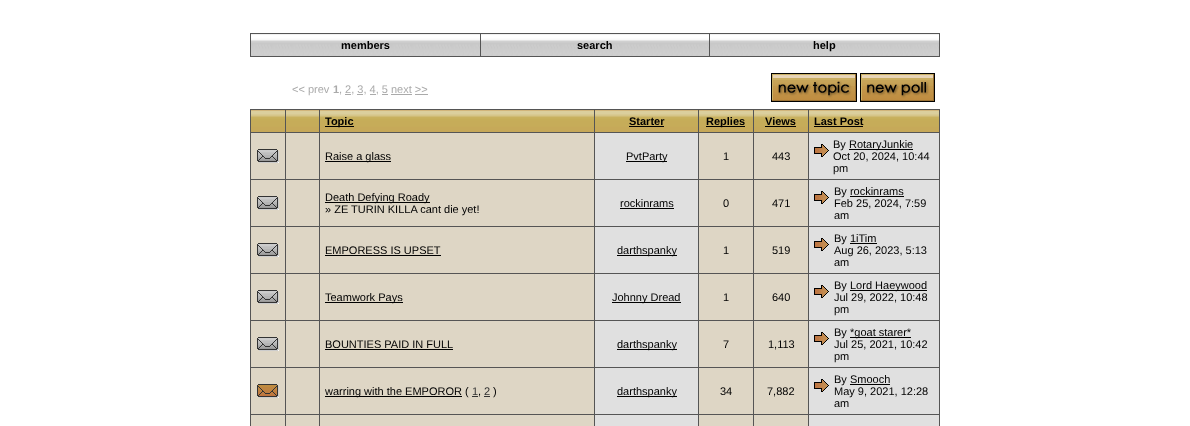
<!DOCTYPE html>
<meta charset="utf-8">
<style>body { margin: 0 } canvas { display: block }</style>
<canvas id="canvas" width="1190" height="426"></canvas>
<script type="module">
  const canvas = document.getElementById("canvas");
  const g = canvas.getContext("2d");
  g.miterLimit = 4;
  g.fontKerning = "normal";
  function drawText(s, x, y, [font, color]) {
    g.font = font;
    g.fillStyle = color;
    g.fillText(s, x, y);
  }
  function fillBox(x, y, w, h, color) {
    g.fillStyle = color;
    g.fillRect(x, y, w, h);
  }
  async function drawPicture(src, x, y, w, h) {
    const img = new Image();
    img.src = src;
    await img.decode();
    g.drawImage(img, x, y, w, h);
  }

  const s1 = ["bold 11px Liberation Sans", "#000000"];
  const s2 = ["11px Liberation Sans", "#AAAAAA"];
  const s3 = ["bold 11px Liberation Sans", "#AAAAAA"];
  const s4 = ["11px Liberation Sans", "#000000"];
  const s5 = ["11px Liberation Sans", "#333333"];

  fillBox(0, 0, 1190, 426, "#FFFFFF");
  await drawPicture("pic1.png", 251, 34, 229, 22);
  fillBox(709, 33, 231, 1, "#555555");
  fillBox(939, 33, 1, 24, "#555555");
  fillBox(709, 56, 231, 1, "#555555");
  fillBox(709, 33, 1, 24, "#555555");
  fillBox(480, 33, 230, 1, "#555555");
  fillBox(480, 56, 230, 1, "#555555");
  fillBox(480, 33, 1, 24, "#555555");
  fillBox(250, 33, 231, 1, "#555555");
  fillBox(250, 56, 231, 1, "#555555");
  fillBox(250, 33, 1, 24, "#555555");
  drawText("members", 341, 49, s1);
  await drawPicture("pic2.png", 481, 34, 228, 22);
  drawText("search", 577, 49, s1);
  await drawPicture("pic3.png", 710, 34, 229, 22);
  drawText("help", 813, 49, s1);
  drawText("<< prev", 292, 93, s2);
  drawText("1", 333, 93, s3);
  drawText(", 2, 3, 4, 5 next >>", 339, 93, s2);
  fillBox(345, 94, 6, 1, "#AAAAAA");
  fillBox(357, 94, 6, 1, "#AAAAAA");
  fillBox(370, 94, 6, 1, "#AAAAAA");
  fillBox(382, 94, 6, 1, "#AAAAAA");
  fillBox(391, 94, 21, 1, "#AAAAAA");
  fillBox(415, 94, 13, 1, "#AAAAAA");
  await drawPicture("pic4.png", 771, 73, 86, 29);
  await drawPicture("pic5.png", 860, 73, 75, 29);
  await drawPicture("pic6.png", 251, 110, 34, 22);
  fillBox(808, 109, 132, 1, "#555555");
  fillBox(808, 132, 132, 1, "#555555");
  fillBox(808, 179, 132, 1, "#555555");
  fillBox(808, 226, 132, 1, "#555555");
  fillBox(808, 273, 132, 1, "#555555");
  fillBox(808, 320, 132, 1, "#555555");
  fillBox(808, 367, 132, 1, "#555555");
  fillBox(808, 414, 132, 1, "#555555");
  fillBox(808, 414, 1, 12, "#555555");
  fillBox(753, 414, 56, 1, "#555555");
  fillBox(808, 367, 1, 48, "#555555");
  fillBox(753, 367, 56, 1, "#555555");
  fillBox(808, 320, 1, 48, "#555555");
  fillBox(753, 320, 56, 1, "#555555");
  fillBox(808, 273, 1, 48, "#555555");
  fillBox(753, 273, 56, 1, "#555555");
  fillBox(808, 226, 1, 48, "#555555");
  fillBox(753, 226, 56, 1, "#555555");
  fillBox(808, 179, 1, 48, "#555555");
  fillBox(753, 179, 56, 1, "#555555");
  fillBox(808, 132, 1, 48, "#555555");
  fillBox(753, 132, 56, 1, "#555555");
  fillBox(808, 109, 1, 24, "#555555");
  fillBox(753, 109, 56, 1, "#555555");
  fillBox(753, 414, 1, 12, "#555555");
  fillBox(698, 414, 56, 1, "#555555");
  fillBox(753, 367, 1, 48, "#555555");
  fillBox(698, 367, 56, 1, "#555555");
  fillBox(753, 320, 1, 48, "#555555");
  fillBox(698, 320, 56, 1, "#555555");
  fillBox(753, 273, 1, 48, "#555555");
  fillBox(698, 273, 56, 1, "#555555");
  fillBox(753, 226, 1, 48, "#555555");
  fillBox(698, 226, 56, 1, "#555555");
  fillBox(753, 179, 1, 48, "#555555");
  fillBox(698, 179, 56, 1, "#555555");
  fillBox(753, 132, 1, 48, "#555555");
  fillBox(698, 132, 56, 1, "#555555");
  fillBox(753, 109, 1, 24, "#555555");
  fillBox(698, 109, 56, 1, "#555555");
  fillBox(698, 414, 1, 12, "#555555");
  fillBox(594, 414, 105, 1, "#555555");
  fillBox(698, 367, 1, 48, "#555555");
  fillBox(594, 367, 105, 1, "#555555");
  fillBox(698, 320, 1, 48, "#555555");
  fillBox(594, 320, 105, 1, "#555555");
  fillBox(698, 273, 1, 48, "#555555");
  fillBox(594, 273, 105, 1, "#555555");
  fillBox(698, 226, 1, 48, "#555555");
  fillBox(594, 226, 105, 1, "#555555");
  fillBox(698, 179, 1, 48, "#555555");
  fillBox(594, 179, 105, 1, "#555555");
  fillBox(698, 132, 1, 48, "#555555");
  fillBox(594, 132, 105, 1, "#555555");
  fillBox(698, 109, 1, 24, "#555555");
  fillBox(594, 109, 105, 1, "#555555");
  fillBox(594, 414, 1, 12, "#555555");
  fillBox(319, 414, 276, 1, "#555555");
  fillBox(594, 367, 1, 48, "#555555");
  fillBox(319, 367, 276, 1, "#555555");
  fillBox(594, 320, 1, 48, "#555555");
  fillBox(319, 320, 276, 1, "#555555");
  fillBox(594, 273, 1, 48, "#555555");
  fillBox(319, 273, 276, 1, "#555555");
  fillBox(594, 226, 1, 48, "#555555");
  fillBox(319, 226, 276, 1, "#555555");
  fillBox(594, 179, 1, 48, "#555555");
  fillBox(319, 179, 276, 1, "#555555");
  fillBox(594, 132, 1, 48, "#555555");
  fillBox(319, 132, 276, 1, "#555555");
  fillBox(594, 109, 1, 24, "#555555");
  fillBox(319, 109, 276, 1, "#555555");
  fillBox(319, 414, 1, 12, "#555555");
  fillBox(285, 414, 35, 1, "#555555");
  fillBox(319, 367, 1, 48, "#555555");
  fillBox(285, 367, 35, 1, "#555555");
  fillBox(319, 320, 1, 48, "#555555");
  fillBox(285, 320, 35, 1, "#555555");
  fillBox(319, 273, 1, 48, "#555555");
  fillBox(285, 273, 35, 1, "#555555");
  fillBox(319, 226, 1, 48, "#555555");
  fillBox(285, 226, 35, 1, "#555555");
  fillBox(319, 179, 1, 48, "#555555");
  fillBox(285, 179, 35, 1, "#555555");
  fillBox(319, 132, 1, 48, "#555555");
  fillBox(285, 132, 35, 1, "#555555");
  fillBox(319, 109, 1, 24, "#555555");
  fillBox(285, 109, 35, 1, "#555555");
  fillBox(285, 414, 1, 12, "#555555");
  fillBox(250, 414, 36, 1, "#555555");
  fillBox(285, 367, 1, 48, "#555555");
  fillBox(250, 367, 36, 1, "#555555");
  fillBox(285, 320, 1, 48, "#555555");
  fillBox(250, 320, 36, 1, "#555555");
  fillBox(285, 273, 1, 48, "#555555");
  fillBox(250, 273, 36, 1, "#555555");
  fillBox(285, 226, 1, 48, "#555555");
  fillBox(250, 226, 36, 1, "#555555");
  fillBox(285, 179, 1, 48, "#555555");
  fillBox(250, 179, 36, 1, "#555555");
  fillBox(285, 132, 1, 48, "#555555");
  fillBox(250, 132, 36, 1, "#555555");
  fillBox(285, 109, 1, 24, "#555555");
  fillBox(250, 109, 36, 1, "#555555");
  fillBox(250, 414, 1, 12, "#555555");
  fillBox(250, 367, 1, 48, "#555555");
  fillBox(250, 320, 1, 48, "#555555");
  fillBox(250, 273, 1, 48, "#555555");
  fillBox(250, 226, 1, 48, "#555555");
  fillBox(250, 179, 1, 48, "#555555");
  fillBox(250, 132, 1, 48, "#555555");
  fillBox(250, 109, 1, 24, "#555555");
  await drawPicture("pic7.png", 286, 110, 33, 22);
  await drawPicture("pic8.png", 320, 110, 274, 22);
  fillBox(325, 126, 29, 1, "#000000");
  drawText("Topic", 325, 125, s1);
  await drawPicture("pic9.png", 595, 110, 103, 22);
  drawText("Starter", 629, 125, s1);
  fillBox(629, 126, 35, 1, "#000000");
  await drawPicture("pic10.png", 699, 110, 54, 22);
  fillBox(706, 126, 39, 1, "#000000");
  drawText("Replies", 706, 125, s1);
  await drawPicture("pic10.png", 754, 110, 54, 22);
  drawText("Views", 765, 125, s1);
  fillBox(765, 126, 31, 1, "#000000");
  await drawPicture("pic11.png", 809, 110, 130, 22);
  fillBox(939, 414, 1, 12, "#555555");
  fillBox(939, 367, 1, 48, "#555555");
  fillBox(939, 320, 1, 48, "#555555");
  fillBox(939, 273, 1, 48, "#555555");
  fillBox(939, 226, 1, 48, "#555555");
  fillBox(939, 179, 1, 48, "#555555");
  fillBox(939, 132, 1, 48, "#555555");
  fillBox(939, 109, 1, 24, "#555555");
  drawText("Last Post", 814, 125, s1);
  fillBox(814, 126, 49, 1, "#000000");
  fillBox(251, 133, 34, 46, "#DED6C5");
  await drawPicture("pic12.png", 257, 149, 22, 14);
  fillBox(286, 133, 33, 46, "#DED6C5");
  fillBox(320, 133, 274, 46, "#DED6C5");
  fillBox(325, 161, 66, 1, "#000000");
  drawText("Raise a glass", 325, 160, s4);
  fillBox(595, 133, 103, 46, "#E0E0E0");
  fillBox(626, 161, 41, 1, "#000000");
  drawText("PvtParty", 626, 160, s4);
  fillBox(699, 133, 54, 46, "#DED6C5");
  drawText("1", 723, 160, s4);
  fillBox(754, 133, 54, 46, "#DED6C5");
  drawText("443", 772, 160, s4);
  fillBox(809, 133, 130, 46, "#E0E0E0");
  await drawPicture("pic13.png", 814, 144, 15, 13);
  drawText("By", 833, 148, s4);
  fillBox(849, 149, 64, 1, "#000000");
  drawText("RotaryJunkie", 849, 148, s4);
  drawText("Oct 20, 2024, 10:44", 833, 160, s4);
  drawText("pm", 833, 172, s4);
  fillBox(251, 180, 34, 46, "#DED6C5");
  await drawPicture("pic12.png", 257, 196, 22, 14);
  fillBox(286, 180, 33, 46, "#DED6C5");
  fillBox(320, 180, 274, 46, "#DED6C5");
  fillBox(325, 202, 105, 1, "#000000");
  drawText("Death Defying Roady", 325, 201, s4);
  drawText("» ZE TURIN KILLA cant die yet!", 325, 213, s4);
  fillBox(595, 180, 103, 46, "#E0E0E0");
  drawText("rockinrams", 620, 207, s4);
  fillBox(620, 208, 54, 1, "#000000");
  fillBox(699, 180, 54, 46, "#DED6C5");
  drawText("0", 723, 207, s4);
  fillBox(754, 180, 54, 46, "#DED6C5");
  drawText("471", 772, 207, s4);
  fillBox(809, 180, 130, 46, "#E0E0E0");
  await drawPicture("pic13.png", 814, 191, 15, 13);
  drawText("By rockinrams", 834, 195, s4);
  fillBox(850, 196, 54, 1, "#000000");
  drawText("Feb 25, 2024, 7:59", 834, 207, s4);
  drawText("am", 834, 219, s4);
  fillBox(251, 227, 34, 46, "#DED6C5");
  await drawPicture("pic12.png", 257, 243, 22, 14);
  fillBox(286, 227, 33, 46, "#DED6C5");
  fillBox(320, 227, 274, 46, "#DED6C5");
  drawText("EMPORESS IS UPSET", 325, 254, s4);
  fillBox(325, 255, 116, 1, "#000000");
  fillBox(595, 227, 103, 46, "#E0E0E0");
  fillBox(617, 255, 60, 1, "#000000");
  drawText("darthspanky", 617, 254, s4);
  fillBox(699, 227, 54, 46, "#DED6C5");
  drawText("1", 723, 254, s4);
  fillBox(754, 227, 54, 46, "#DED6C5");
  drawText("519", 772, 254, s4);
  fillBox(809, 227, 130, 46, "#E0E0E0");
  await drawPicture("pic13.png", 814, 238, 15, 13);
  drawText("By 1iTim", 834, 242, s4);
  fillBox(850, 243, 27, 1, "#000000");
  drawText("Aug 26, 2023, 5:13", 834, 254, s4);
  drawText("am", 834, 266, s4);
  fillBox(251, 274, 34, 46, "#DED6C5");
  await drawPicture("pic12.png", 257, 290, 22, 14);
  fillBox(286, 274, 33, 46, "#DED6C5");
  fillBox(320, 274, 274, 46, "#DED6C5");
  fillBox(325, 302, 78, 1, "#000000");
  drawText("Teamwork Pays", 325, 301, s4);
  fillBox(595, 274, 103, 46, "#E0E0E0");
  fillBox(612, 302, 69, 1, "#000000");
  drawText("Johnny Dread", 612, 301, s4);
  fillBox(699, 274, 54, 46, "#DED6C5");
  drawText("1", 723, 301, s4);
  fillBox(754, 274, 54, 46, "#DED6C5");
  drawText("640", 772, 301, s4);
  fillBox(809, 274, 130, 46, "#E0E0E0");
  await drawPicture("pic13.png", 814, 285, 15, 13);
  drawText("By", 834, 289, s4);
  fillBox(850, 290, 77, 1, "#000000");
  drawText("Lord Haeywood", 850, 289, s4);
  drawText("Jul 29, 2022, 10:48", 834, 301, s4);
  drawText("pm", 834, 313, s4);
  fillBox(251, 321, 34, 46, "#DED6C5");
  await drawPicture("pic12.png", 257, 337, 22, 14);
  fillBox(286, 321, 33, 46, "#DED6C5");
  fillBox(320, 321, 274, 46, "#DED6C5");
  drawText("BOUNTIES PAID IN FULL", 325, 348, s4);
  fillBox(325, 349, 128, 1, "#000000");
  fillBox(595, 321, 103, 46, "#E0E0E0");
  fillBox(617, 349, 60, 1, "#000000");
  drawText("darthspanky", 617, 348, s4);
  fillBox(699, 321, 54, 46, "#DED6C5");
  drawText("7", 723, 348, s4);
  fillBox(754, 321, 54, 46, "#DED6C5");
  drawText("1,113", 768, 348, s4);
  fillBox(809, 321, 130, 46, "#E0E0E0");
  await drawPicture("pic13.png", 814, 332, 15, 13);
  drawText("By", 834, 336, s4);
  fillBox(850, 337, 61, 1, "#000000");
  drawText("*goat starer*", 850, 336, s4);
  drawText("Jul 25, 2021, 10:42", 834, 348, s4);
  drawText("pm", 834, 360, s4);
  fillBox(251, 368, 34, 46, "#DED6C5");
  await drawPicture("pic14.png", 257, 384, 22, 14);
  fillBox(286, 368, 33, 46, "#DED6C5");
  fillBox(320, 368, 274, 46, "#DED6C5");
  fillBox(325, 396, 137, 1, "#000000");
  drawText("warring with the EMPOROR (", 325, 395, s4);
  drawText("1", 472, 395, s5);
  fillBox(472, 396, 6, 1, "#333333");
  drawText(",", 478, 395, s4);
  drawText("2", 484, 395, s5);
  fillBox(484, 396, 6, 1, "#333333");
  drawText(")", 493, 395, s4);
  fillBox(595, 368, 103, 46, "#E0E0E0");
  fillBox(617, 396, 60, 1, "#000000");
  drawText("darthspanky", 617, 395, s4);
  fillBox(699, 368, 54, 46, "#DED6C5");
  drawText("34", 720, 395, s4);
  fillBox(754, 368, 54, 46, "#DED6C5");
  drawText("7,882", 767, 395, s4);
  fillBox(809, 368, 130, 46, "#E0E0E0");
  await drawPicture("pic13.png", 814, 379, 15, 13);
  drawText("By Smooch", 834, 383, s4);
  fillBox(850, 384, 40, 1, "#000000");
  drawText("May 9, 2021, 12:28", 834, 395, s4);
  drawText("am", 834, 407, s4);
  fillBox(251, 415, 34, 11, "#DED6C5");
  fillBox(286, 415, 33, 11, "#DED6C5");
  fillBox(320, 415, 274, 11, "#DED6C5");
  fillBox(595, 415, 103, 11, "#E0E0E0");
  fillBox(699, 415, 54, 11, "#DED6C5");
  fillBox(754, 415, 54, 11, "#DED6C5");
  fillBox(809, 415, 130, 11, "#E0E0E0");
</script>
